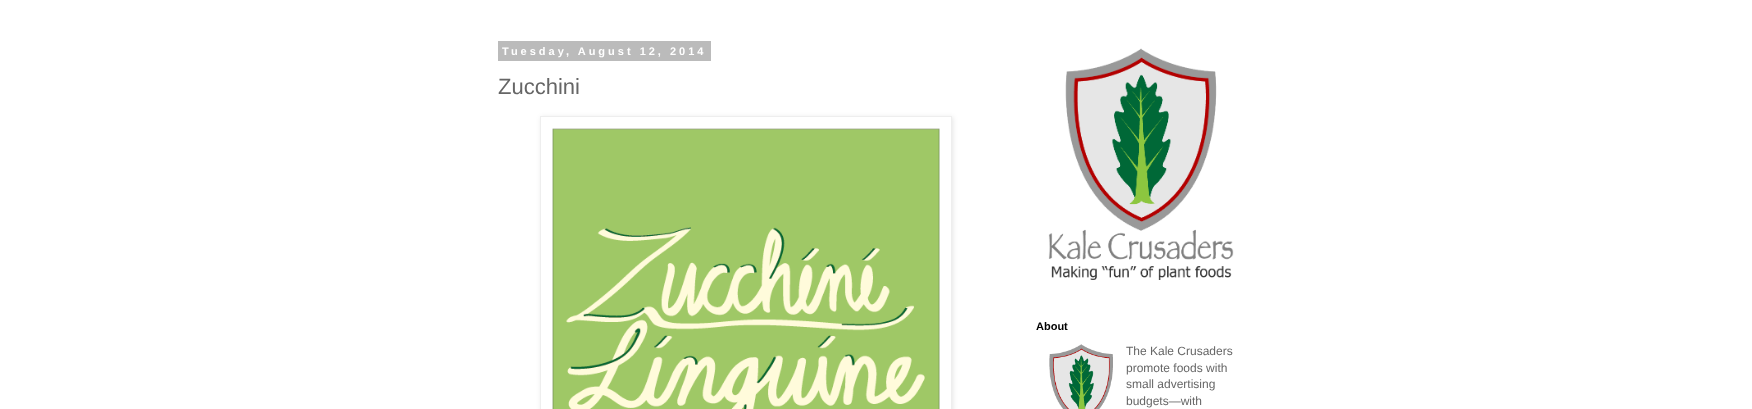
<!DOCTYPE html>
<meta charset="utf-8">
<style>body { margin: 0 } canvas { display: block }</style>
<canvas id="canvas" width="1752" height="409"></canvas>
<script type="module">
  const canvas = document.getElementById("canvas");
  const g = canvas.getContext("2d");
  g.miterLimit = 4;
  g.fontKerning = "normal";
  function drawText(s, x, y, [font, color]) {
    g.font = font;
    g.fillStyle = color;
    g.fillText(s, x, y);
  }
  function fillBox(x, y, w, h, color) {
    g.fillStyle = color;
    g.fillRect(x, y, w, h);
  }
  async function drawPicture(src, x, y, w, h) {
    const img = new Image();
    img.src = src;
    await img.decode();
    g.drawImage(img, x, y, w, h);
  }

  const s1 = ["bold 11px Liberation Sans", "#FFFFFF"];
  const s2 = ["22px Liberation Sans", "#666666"];
  const s3 = ["bold 11px Liberation Sans", "#000000"];
  const s4 = ["12px Liberation Sans", "#666666"];

  fillBox(0, 0, 1752, 409, "#FFFFFF");
  fillBox(498, 41, 213, 20, "#BBBBBB");
  g.letterSpacing = "3px";
  drawText("Tuesday, August 12, 2014", 502, 55, s1);
  g.letterSpacing = "0px";
  drawText("Zucchini", 498, 94, s2);
  g.save();
  g.beginPath();
  g.moveTo(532, 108);
  g.lineTo(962, 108);
  g.lineTo(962, 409);
  g.lineTo(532, 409);
  g.closePath();
  g.moveTo(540, 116);
  g.lineTo(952, 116);
  g.lineTo(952, 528);
  g.lineTo(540, 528);
  g.closePath();
  g.clip("evenodd");
  g.fillStyle = "rgba(0, 0, 0, 0.1)";
  g.filter = "blur(2.5px)";
  g.beginPath();
  g.rect(541, 117, 412, 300);
  g.fill();
  g.filter = "none";
  g.restore();
  g.strokeStyle = "#EEEEEE";
  g.strokeRect(540.5, 116.5, 411, 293);
  await drawPicture("pic1.png", 552, 128, 388, 281);
  await drawPicture("pic2.png", 1048, 48, 186, 232);
  drawText("About", 1036, 330, s3);
  await drawPicture("pic3.png", 1049, 344, 64, 65);
  drawText("The Kale Crusaders", 1126, 355, s4);
  drawText("promote foods with", 1126, 372, s4);
  drawText("small advertising", 1126, 388, s4);
  drawText("budgets—with", 1126, 405, s4);
</script>
